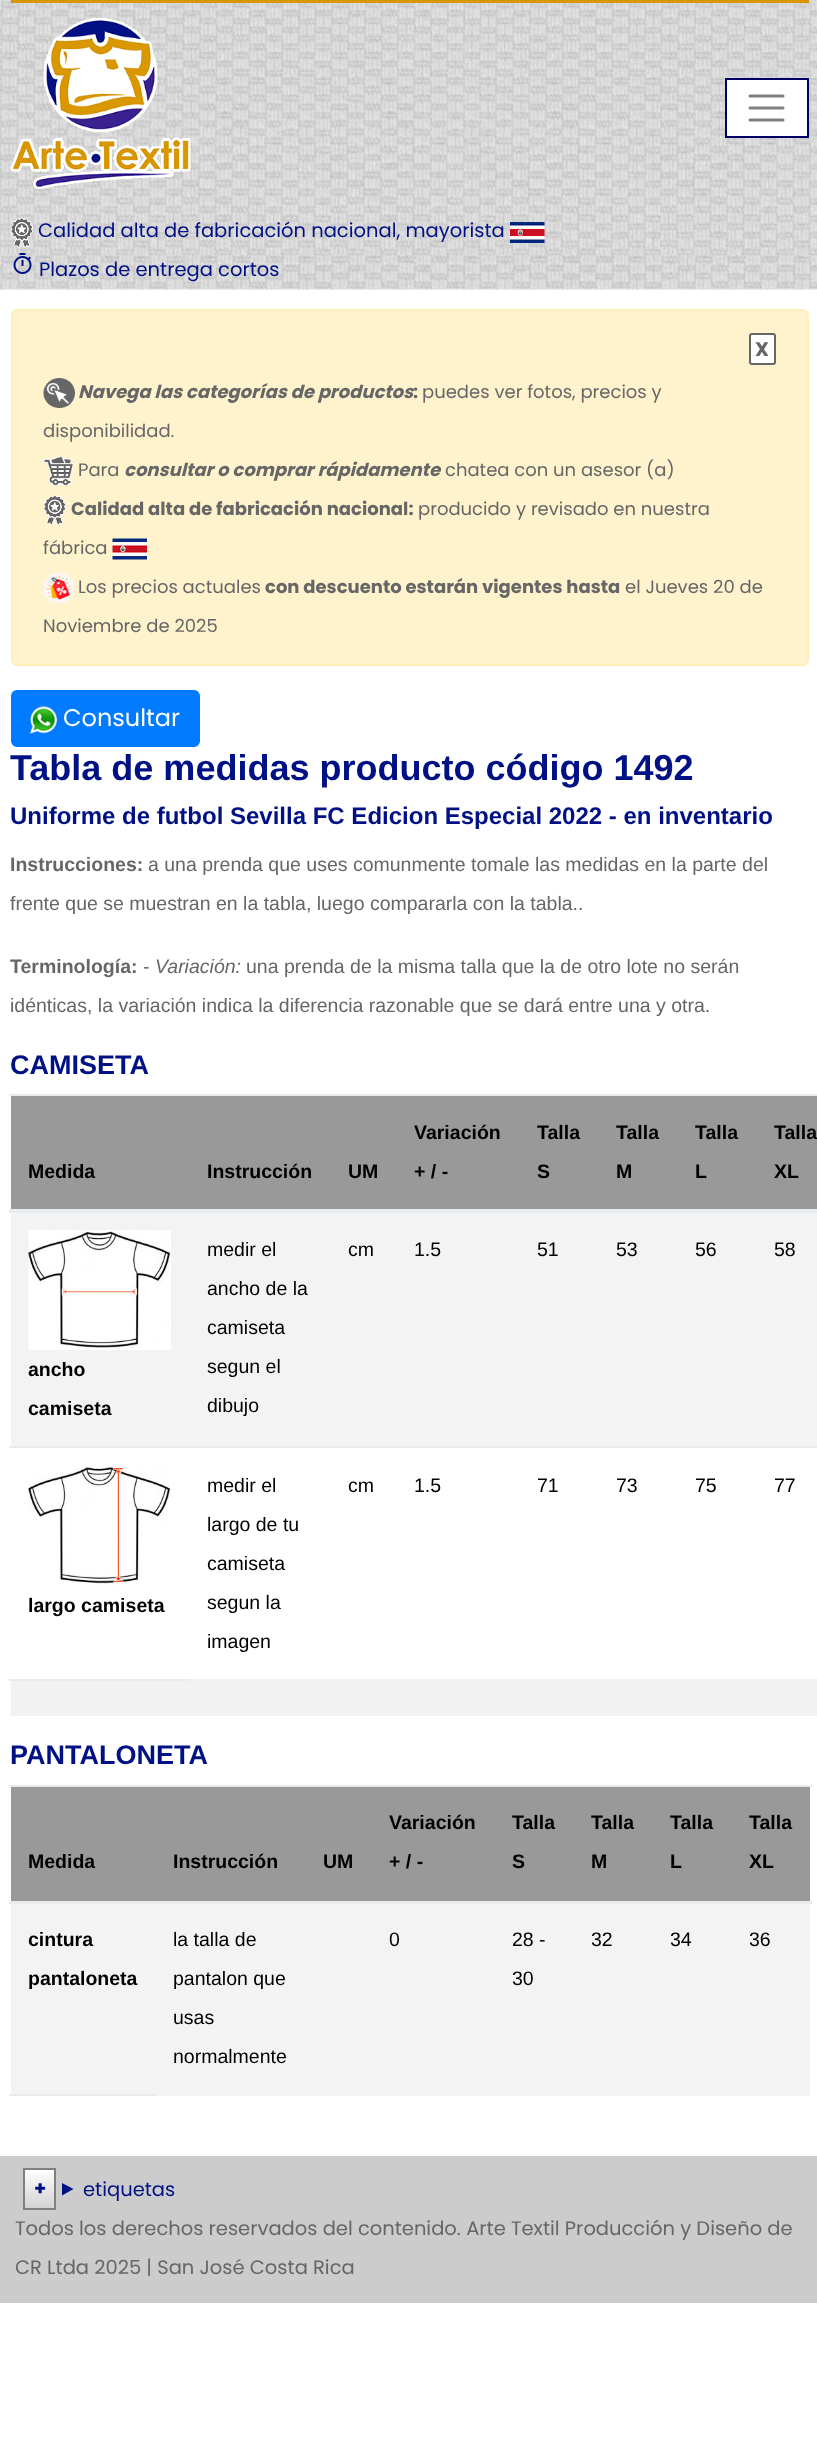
<!DOCTYPE html>
<meta charset="utf-8">
<style>body { margin: 0 } canvas { display: block }</style>
<canvas id="canvas" width="817" height="2447"></canvas>
<script type="module">
  const canvas = document.getElementById("canvas");
  const g = canvas.getContext("2d");
  g.miterLimit = 4;
  g.fontKerning = "normal";
  function drawText(s, x, y, [font, color]) {
    g.font = font;
    g.fillStyle = color;
    g.fillText(s, x, y);
  }
  function fillBox(x, y, w, h, color) {
    g.fillStyle = color;
    g.fillRect(x, y, w, h);
  }
  async function drawPicture(src, x, y, w, h) {
    const img = new Image();
    img.src = src;
    await img.decode();
    g.drawImage(img, x, y, w, h);
  }
  let gradient;

  const s1 = ["19.5px Poppins", "#001085"];
  const s2 = ["bold 19.5px Poppins", "#666666"];
  const s3 = ["italic bold 18px Poppins", "#666666"];
  const s4 = ["bold 18px Poppins", "#666666"];
  const s5 = ["18px Poppins", "#666666"];
  const s6 = ["24px Poppins", "#FFFFFF"];
  const s7 = ["bold 36px Liberation Sans", "#001085"];
  const s8 = ["bold 24px Liberation Sans", "#001085"];
  const s9 = ["bold 19.5px Liberation Sans", "#666666"];
  const s10 = ["19.5px Liberation Sans", "#666666"];
  const s11 = ["italic 19.5px Liberation Sans", "#666666"];
  const s12 = ["bold 27px Liberation Sans", "#001085"];
  const s13 = ["bold 19.5px Liberation Sans", "#000000"];
  const s14 = ["19.5px Liberation Sans", "#000000"];
  const s15 = ["bold 19.5px Poppins", "#001085"];
  const s16 = ["19.5px Poppins", "#666666"];

  fillBox(0, 0, 817, 2447, "#FFFFFF");
  await drawPicture("pic1.png", 0, 0, 817, 290);
  fillBox(11, 0, 798, 3, "#D89600");
  await drawPicture("pic2.png", 10, 18, 181, 171);
  g.fillStyle = "#FFFFFF";
  g.beginPath();
  g.rect(726, 79, 82, 58);
  g.fill();
  g.strokeStyle = "#000066";
  g.lineWidth = 2;
  g.stroke();
  g.beginPath();
  g.moveTo(750, 96);
  g.lineTo(783, 96);
  g.moveTo(750, 108);
  g.lineTo(783, 108);
  g.moveTo(750, 120);
  g.lineTo(783, 120);
  g.strokeStyle = "#808080";
  g.lineWidth = 3;
  g.lineCap = "round";
  g.stroke();
  await drawPicture("pic3.png", 10, 217, 23, 31);
  drawText("Calidad alta de fabricación nacional, mayorista", 38, 237, s1);
  await drawPicture("pic4.png", 510, 222, 35, 21);
  await drawPicture("pic5.png", 13, 253, 19, 21);
  drawText("Plazos de entrega cortos", 39, 276, s1);
  g.fillStyle = "#FFF3CD";
  g.beginPath();
  g.roundRect(12, 310, 796, 355, 5);
  g.fill();
  g.strokeStyle = "#FFEEBA";
  g.lineWidth = 2;
  g.stroke();
  g.fillStyle = "#FFFFFF";
  g.beginPath();
  g.roundRect(750, 334, 25, 30, 2);
  g.fill();
  g.strokeStyle = "#666666";
  g.stroke();
  drawText("X", 755, 356, s2);
  await drawPicture("pic6.png", 43, 378, 32, 30);
  drawText("Navega las categorías de productos", 78, 398, s3);
  drawText(":", 413, 398, s4);
  drawText("puedes ver fotos, precios y", 422, 398, s5);
  drawText("disponibilidad.", 43, 437, s5);
  await drawPicture("pic7.png", 43, 456, 31, 30);
  drawText("Para", 78, 476, s5);
  drawText("consultar o comprar rápidamente", 124, 476, s3);
  drawText("chatea con un asesor (a)", 445, 476, s5);
  await drawPicture("pic8.png", 43, 495, 23, 30);
  drawText("Calidad alta de fabricación nacional:", 71, 515, s4);
  drawText("producido y revisado en nuestra", 418, 515, s5);
  drawText("fábrica", 43, 554, s5);
  await drawPicture("pic9.png", 112, 538, 35, 22);
  await drawPicture("pic10.png", 43, 573, 31, 30);
  drawText("Los precios actuales", 78, 593, s5);
  drawText("con descuento estarán vigentes hasta", 265, 593, s4);
  drawText("el Jueves 20 de", 625, 593, s5);
  drawText("Noviembre de 2025", 43, 632, s5);
  g.fillStyle = "#007BFF";
  g.beginPath();
  g.roundRect(12, 691, 187, 55, 5);
  g.fill();
  g.strokeStyle = "#007BFF";
  g.stroke();
  await drawPicture("pic11.png", 30, 706, 27, 28);
  drawText("Consultar", 63, 726, s6);
  drawText("Tabla de medidas producto código 1492", 10, 780, s7);
  drawText("Uniforme de futbol Sevilla FC Edicion Especial 2022 - en inventario", 10, 824, s8);
  drawText("Instrucciones:", 10, 871, s9);
  drawText("a una prenda que uses comunmente tomale las medidas en la parte del", 148, 871, s10);
  drawText("frente que se muestran en la tabla, luego compararla con la tabla..", 10, 910, s10);
  drawText("Terminología:", 10, 973, s9);
  drawText("-", 143, 973, s10);
  drawText("Variación:", 155, 973, s11);
  drawText("una prenda de la misma talla que la de otro lote no serán", 246, 973, s10);
  drawText("idénticas, la variación indica la diferencia razonable que se dará entre una y otra.", 10, 1012, s10);
  drawText("CAMISETA", 10, 1074, s12);
  fillBox(11, 1096, 806, 113, "#999999");
  drawText("Medida", 28, 1178, s13);
  drawText("Instrucción", 207, 1178, s13);
  drawText("UM", 348, 1178, s13);
  drawText("Variación", 414, 1139, s13);
  drawText("+ / -", 414, 1178, s13);
  drawText("Talla", 537, 1139, s13);
  drawText("S", 537, 1178, s13);
  drawText("Talla", 616, 1139, s13);
  drawText("M", 616, 1178, s13);
  drawText("Talla", 695, 1139, s13);
  drawText("L", 695, 1178, s13);
  fillBox(9, 1094, 808, 2, "#E9ECEF");
  fillBox(9, 1209, 808, 3, "#E9ECEF");
  drawText("Talla", 774, 1139, s13);
  drawText("XL", 774, 1178, s13);
  fillBox(11, 1213, 806, 233, "#F3F3F3");
  drawText("medir el", 207, 1256, s14);
  drawText("ancho de la", 207, 1295, s14);
  drawText("camiseta", 207, 1334, s14);
  drawText("segun el", 207, 1373, s14);
  drawText("dibujo", 207, 1412, s14);
  drawText("cm", 348, 1256, s14);
  drawText("1.5", 414, 1256, s14);
  drawText("51", 537, 1256, s14);
  drawText("53", 616, 1256, s14);
  drawText("56", 695, 1256, s14);
  fillBox(9, 1212, 808, 1, "#E9ECEF");
  drawText("58", 774, 1256, s14);
  await drawPicture("pic12.png", 28, 1230, 143, 120);
  drawText("ancho", 28, 1376, s13);
  drawText("camiseta", 28, 1415, s13);
  drawText("medir el", 207, 1492, s14);
  drawText("largo de tu", 207, 1531, s14);
  drawText("camiseta", 207, 1570, s14);
  drawText("segun la", 207, 1609, s14);
  drawText("imagen", 207, 1648, s14);
  drawText("cm", 348, 1492, s14);
  drawText("1.5", 414, 1492, s14);
  drawText("71", 537, 1492, s14);
  drawText("73", 616, 1492, s14);
  drawText("75", 695, 1492, s14);
  fillBox(9, 1446, 808, 2, "#E9ECEF");
  drawText("77", 774, 1492, s14);
  await drawPicture("pic13.png", 28, 1465, 143, 120);
  drawText("largo camiseta", 28, 1612, s13);
  fillBox(11, 1679, 806, 37, "#F2F2F2");
  fillBox(9, 1679, 180, 2, "#E9ECEF");
  drawText("PANTALONETA", 10, 1764, s12);
  fillBox(11, 1787, 799, 114, "#999999");
  drawText("Medida", 28, 1868, s13);
  drawText("Instrucción", 173, 1868, s13);
  drawText("UM", 323, 1868, s13);
  drawText("Variación", 389, 1829, s13);
  drawText("+ / -", 389, 1868, s13);
  drawText("Talla", 512, 1829, s13);
  drawText("S", 512, 1868, s13);
  drawText("Talla", 591, 1829, s13);
  drawText("M", 591, 1868, s13);
  drawText("Talla", 670, 1829, s13);
  drawText("L", 670, 1868, s13);
  fillBox(9, 1785, 803, 2, "#E9ECEF");
  fillBox(9, 1901, 803, 3, "#E9ECEF");
  drawText("Talla", 749, 1829, s13);
  drawText("XL", 749, 1868, s13);
  fillBox(11, 1904, 799, 192, "#F3F3F3");
  drawText("cintura", 28, 1946, s13);
  drawText("pantaloneta", 28, 1985, s13);
  drawText("la talla de", 173, 1946, s14);
  drawText("pantalon que", 173, 1985, s14);
  drawText("usas", 173, 2024, s14);
  drawText("normalmente", 173, 2063, s14);
  drawText("0", 389, 1946, s14);
  drawText("28 -", 512, 1946, s14);
  drawText("30", 512, 1985, s14);
  drawText("32", 591, 1946, s14);
  drawText("34", 670, 1946, s14);
  drawText("36", 749, 1946, s14);
  fillBox(9, 2094, 147, 2, "#E9ECEF");
  fillBox(0, 2156, 817, 147, "#CCCCCC");
  gradient = g.createLinearGradient(39, 2169, 39, 2208);
  gradient.addColorStop(0, "#FFFFFF");
  gradient.addColorStop(1, "#D3D3D3");
  g.fillStyle = gradient;
  g.fillRect(25, 2170, 29, 38);
  g.strokeStyle = "#808080";
  g.strokeRect(24, 2169, 31, 40);
  drawText("+", 34, 2195, s15);
  g.beginPath();
  g.moveTo(62, 2183);
  g.lineTo(73.5, 2189);
  g.lineTo(62, 2195.5);
  g.closePath();
  g.fill();
  drawText("etiquetas", 83, 2196, s1);
  drawText("Todos los derechos reservados del contenido. Arte Textil Producción y Diseño de", 15, 2235, s16);
  drawText("CR Ltda 2025 | San José Costa Rica", 15, 2274, s16);
</script>
